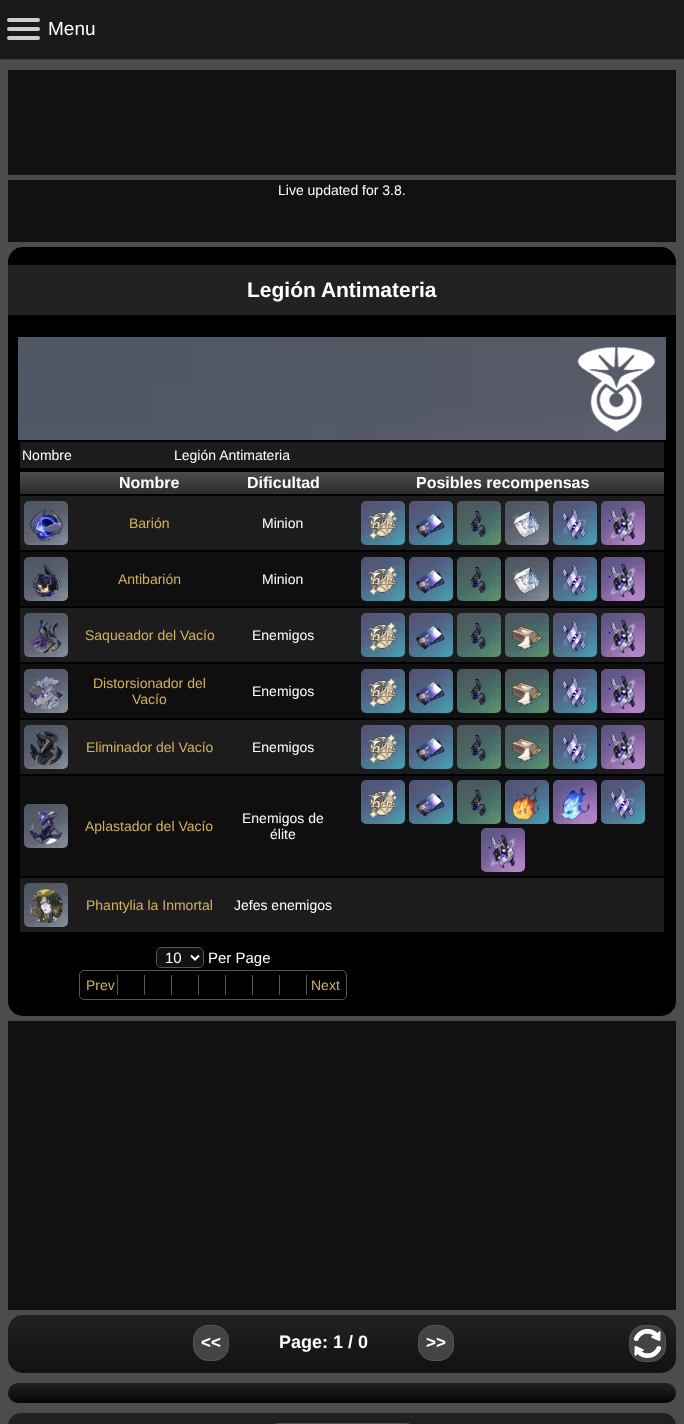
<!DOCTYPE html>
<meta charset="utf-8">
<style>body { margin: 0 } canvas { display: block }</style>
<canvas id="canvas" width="684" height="1424"></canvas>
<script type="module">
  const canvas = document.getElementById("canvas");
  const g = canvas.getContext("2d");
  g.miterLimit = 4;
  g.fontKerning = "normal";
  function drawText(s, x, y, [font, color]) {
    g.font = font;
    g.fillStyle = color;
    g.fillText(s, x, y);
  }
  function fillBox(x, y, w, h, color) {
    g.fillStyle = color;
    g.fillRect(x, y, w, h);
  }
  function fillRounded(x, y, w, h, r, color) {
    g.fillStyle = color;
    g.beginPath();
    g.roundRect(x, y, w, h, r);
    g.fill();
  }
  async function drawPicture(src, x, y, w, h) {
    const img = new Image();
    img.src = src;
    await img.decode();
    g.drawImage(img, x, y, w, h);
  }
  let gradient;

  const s1 = ["19px Liberation Sans", "#FFFFFF"];
  const s2 = ["14px Liberation Sans", "#FFFFFF"];
  const s3 = ["bold 21px Liberation Sans", "#FFFFFF"];
  const s4 = ["bold 16px Liberation Sans", "#FFFFFF"];
  const s5 = ["14px Liberation Sans", "#D4B54D"];
  const s6 = ["15px Liberation Sans", "#FFFFFF"];
  const s7 = ["bold 17px Liberation Sans", "#FFFFFF"];
  const s8 = ["bold 18px Liberation Sans", "#FFFFFF"];

  fillBox(0, 0, 684, 1424, "#4C4C4C");
  fillBox(0, 0, 684, 59, "#191919");
  fillBox(0, 59, 684, 1, "#3C3C3C");
  fillRounded(7, 18, 33, 4, 2, "#CDCDCD");
  fillRounded(7, 27, 33, 4, 2, "#CDCDCD");
  drawText("Menu", 48, 35, s1);
  fillRounded(7, 36, 33, 4, 2, "#CDCDCD");
  fillBox(8, 70, 668, 105, "#111111");
  fillBox(8, 180, 668, 62, "#111111");
  drawText("Live updated for 3.8.", 278, 195, s2);
  fillRounded(8, 247, 668, 769, 15, "#000000");
  fillBox(8, 265, 668, 50, "#222222");
  drawText("Legión Antimateria", 247, 297, s3);
  await drawPicture("pic1.png", 18, 337, 648, 103);
  await drawPicture("pic2.png", 577, 347, 79, 86);
  fillBox(20, 442, 644, 26, "#1C1C1C");
  drawText("Nombre", 22, 460, s2);
  drawText("Legión Antimateria", 174, 460, s2);
  gradient = g.createLinearGradient(342, 472, 342, 494);
  gradient.addColorStop(0, "#4C4C4C");
  gradient.addColorStop(1, "#2C2C2C");
  g.fillStyle = gradient;
  g.fillRect(20, 472, 644, 22);
  drawText("Nombre", 119, 488, s4);
  drawText("Dificultad", 247, 488, s4);
  drawText("Posibles recompensas", 416, 488, s4);
  fillBox(20, 496, 644, 54, "#1C1C1C");
  await drawPicture("pic3.png", 24, 501, 44, 44);
  await drawPicture("pic4.png", 30, 509, 34, 33);
  drawText("Barión", 129, 528, s5);
  drawText("Minion", 262, 528, s2);
  await drawPicture("pic5.png", 361, 501, 44, 44);
  await drawPicture("pic6.png", 368, 510, 30, 30);
  await drawPicture("pic7.png", 409, 501, 44, 44);
  await drawPicture("pic8.png", 416, 513, 29, 25);
  await drawPicture("pic9.png", 457, 501, 44, 44);
  await drawPicture("pic10.png", 470, 510, 17, 28);
  await drawPicture("pic11.png", 505, 501, 44, 44);
  await drawPicture("pic12.png", 512, 511, 28, 27);
  await drawPicture("pic5.png", 553, 501, 44, 44);
  await drawPicture("pic13.png", 562, 509, 26, 31);
  await drawPicture("pic14.png", 601, 501, 44, 44);
  await drawPicture("pic15.png", 608, 507, 28, 35);
  fillBox(20, 552, 644, 54, "#0F0F0F");
  await drawPicture("pic16.png", 24, 557, 44, 44);
  await drawPicture("pic17.png", 32, 563, 29, 35);
  drawText("Antibarión", 118, 584, s5);
  drawText("Minion", 262, 584, s2);
  await drawPicture("pic18.png", 361, 557, 44, 44);
  await drawPicture("pic6.png", 368, 566, 30, 30);
  await drawPicture("pic19.png", 409, 557, 44, 44);
  await drawPicture("pic8.png", 416, 569, 29, 25);
  await drawPicture("pic20.png", 457, 557, 44, 44);
  await drawPicture("pic10.png", 470, 566, 17, 28);
  await drawPicture("pic21.png", 505, 557, 44, 44);
  await drawPicture("pic12.png", 512, 567, 28, 27);
  await drawPicture("pic18.png", 553, 557, 44, 44);
  await drawPicture("pic13.png", 562, 565, 26, 31);
  await drawPicture("pic22.png", 601, 557, 44, 44);
  await drawPicture("pic15.png", 608, 563, 28, 35);
  fillBox(20, 608, 644, 54, "#1C1C1C");
  await drawPicture("pic23.png", 24, 613, 44, 44);
  await drawPicture("pic24.png", 30, 619, 32, 35);
  drawText("Saqueador del Vacío", 85, 640, s5);
  drawText("Enemigos", 252, 640, s2);
  await drawPicture("pic5.png", 361, 613, 44, 44);
  await drawPicture("pic6.png", 368, 622, 30, 30);
  await drawPicture("pic7.png", 409, 613, 44, 44);
  await drawPicture("pic8.png", 416, 625, 29, 25);
  await drawPicture("pic25.png", 457, 613, 44, 44);
  await drawPicture("pic10.png", 470, 622, 17, 28);
  await drawPicture("pic26.png", 505, 613, 44, 44);
  await drawPicture("pic27.png", 512, 626, 31, 24);
  await drawPicture("pic5.png", 553, 613, 44, 44);
  await drawPicture("pic13.png", 562, 621, 26, 31);
  await drawPicture("pic28.png", 601, 613, 44, 44);
  await drawPicture("pic15.png", 608, 619, 28, 35);
  fillBox(20, 664, 644, 54, "#0F0F0F");
  await drawPicture("pic16.png", 24, 669, 44, 44);
  await drawPicture("pic29.png", 29, 675, 35, 35);
  drawText("Distorsionador del", 93, 688, s5);
  drawText("Vacío", 132, 704, s5);
  drawText("Enemigos", 252, 696, s2);
  await drawPicture("pic18.png", 361, 669, 44, 44);
  await drawPicture("pic6.png", 368, 678, 30, 30);
  await drawPicture("pic19.png", 409, 669, 44, 44);
  await drawPicture("pic8.png", 416, 681, 29, 25);
  await drawPicture("pic20.png", 457, 669, 44, 44);
  await drawPicture("pic10.png", 470, 678, 17, 28);
  await drawPicture("pic30.png", 505, 669, 44, 44);
  await drawPicture("pic27.png", 512, 682, 31, 24);
  await drawPicture("pic18.png", 553, 669, 44, 44);
  await drawPicture("pic13.png", 562, 677, 26, 31);
  await drawPicture("pic22.png", 601, 669, 44, 44);
  await drawPicture("pic15.png", 608, 675, 28, 35);
  fillBox(20, 720, 644, 54, "#1C1C1C");
  await drawPicture("pic3.png", 24, 725, 44, 44);
  await drawPicture("pic31.png", 30, 731, 33, 35);
  drawText("Eliminador del Vacío", 86, 752, s5);
  drawText("Enemigos", 252, 752, s2);
  await drawPicture("pic5.png", 361, 725, 44, 44);
  await drawPicture("pic6.png", 368, 734, 30, 30);
  await drawPicture("pic7.png", 409, 725, 44, 44);
  await drawPicture("pic8.png", 416, 737, 29, 25);
  await drawPicture("pic9.png", 457, 725, 44, 44);
  await drawPicture("pic10.png", 470, 734, 17, 28);
  await drawPicture("pic26.png", 505, 725, 44, 44);
  await drawPicture("pic27.png", 512, 738, 31, 24);
  await drawPicture("pic5.png", 553, 725, 44, 44);
  await drawPicture("pic13.png", 562, 733, 26, 31);
  await drawPicture("pic14.png", 601, 725, 44, 44);
  await drawPicture("pic15.png", 608, 731, 28, 35);
  fillBox(20, 776, 644, 100, "#0F0F0F");
  await drawPicture("pic16.png", 24, 804, 44, 44);
  await drawPicture("pic32.png", 29, 810, 33, 35);
  drawText("Aplastador del Vacío", 85, 831, s5);
  drawText("Enemigos de", 242, 823, s2);
  drawText("élite", 270, 839, s2);
  await drawPicture("pic18.png", 361, 780, 44, 44);
  await drawPicture("pic6.png", 368, 789, 30, 30);
  await drawPicture("pic19.png", 409, 780, 44, 44);
  await drawPicture("pic8.png", 416, 792, 29, 25);
  await drawPicture("pic20.png", 457, 780, 44, 44);
  await drawPicture("pic10.png", 470, 789, 17, 28);
  await drawPicture("pic33.png", 505, 780, 44, 44);
  await drawPicture("pic34.png", 512, 787, 28, 33);
  await drawPicture("pic35.png", 553, 780, 44, 44);
  await drawPicture("pic36.png", 559, 788, 31, 32);
  await drawPicture("pic37.png", 601, 780, 44, 44);
  await drawPicture("pic38.png", 610, 788, 26, 31);
  await drawPicture("pic39.png", 481, 828, 44, 44);
  await drawPicture("pic40.png", 488, 834, 28, 35);
  fillBox(20, 878, 644, 54, "#1C1C1C");
  await drawPicture("pic23.png", 24, 883, 44, 44);
  await drawPicture("pic41.png", 29, 889, 35, 35);
  drawText("Phantylia la Inmortal", 86, 910, s5);
  drawText("Jefes enemigos", 234, 910, s2);
  g.fillStyle = "#111111";
  g.beginPath();
  g.roundRect(156.5, 947.5, 47, 20, 4.5);
  g.fill();
  g.strokeStyle = "#555555";
  g.stroke();
  g.beginPath();
  g.moveTo(191, 955.5);
  g.lineTo(195, 959.5);
  g.lineTo(199, 955.5);
  g.strokeStyle = "#FFFFFF";
  g.lineWidth = 2;
  g.stroke();
  drawText("10", 165, 963, s6);
  drawText("Per Page", 208, 963, s6);
  g.beginPath();
  g.roundRect(79.5, 970.5, 267, 29, 4.5);
  g.strokeStyle = "#555555";
  g.lineWidth = 1;
  g.stroke();
  fillBox(117, 975, 1, 20, "#555555");
  drawText("Prev", 86, 990, s5);
  fillBox(144, 975, 1, 20, "#555555");
  fillBox(171, 975, 1, 20, "#555555");
  fillBox(198, 975, 1, 20, "#555555");
  fillBox(225, 975, 1, 20, "#555555");
  fillBox(252, 975, 1, 20, "#555555");
  fillBox(279, 975, 1, 20, "#555555");
  fillBox(306, 975, 1, 20, "#555555");
  drawText("Next", 311, 990, s5);
  fillBox(8, 1021, 668, 289, "#111111");
  gradient = g.createLinearGradient(342, 1315, 342, 1373);
  gradient.addColorStop(0, "#222222");
  gradient.addColorStop(1, "#111111");
  g.fillStyle = gradient;
  g.beginPath();
  g.roundRect(8, 1315, 668, 58, 15);
  g.fill();
  g.fillStyle = "#444444";
  g.beginPath();
  g.roundRect(193.5, 1325.5, 35, 35, 14.5);
  g.fill();
  g.stroke();
  drawText("<<", 201, 1348, s7);
  drawText("Page: 1 / 0", 279, 1348, s8);
  g.fillStyle = "#444444";
  g.beginPath();
  g.roundRect(418.5, 1325.5, 35, 35, 14.5);
  g.fill();
  g.stroke();
  drawText(">>", 426, 1348, s7);
  g.fillStyle = "#444444";
  g.beginPath();
  g.roundRect(629.5, 1325.5, 36, 36, 14.5);
  g.fill();
  g.stroke();
  await drawPicture("pic42.png", 633, 1329, 29, 29);
  gradient = g.createLinearGradient(342, 1383, 342, 1403);
  gradient.addColorStop(0, "#222222");
  gradient.addColorStop(1, "#050505");
  g.fillStyle = gradient;
  g.beginPath();
  g.roundRect(8, 1383, 668, 20, 10);
  g.fill();
  gradient = g.createLinearGradient(342, 1413, 342, 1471);
  gradient.addColorStop(0, "#222222");
  gradient.addColorStop(1, "#111111");
  g.fillStyle = gradient;
  g.beginPath();
  g.roundRect(8, 1413, 668, 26, 15);
  g.fill();
  g.beginPath();
  g.roundRect(269.5, 1423.5, 145, 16, 14.5);
  g.stroke();
</script>
